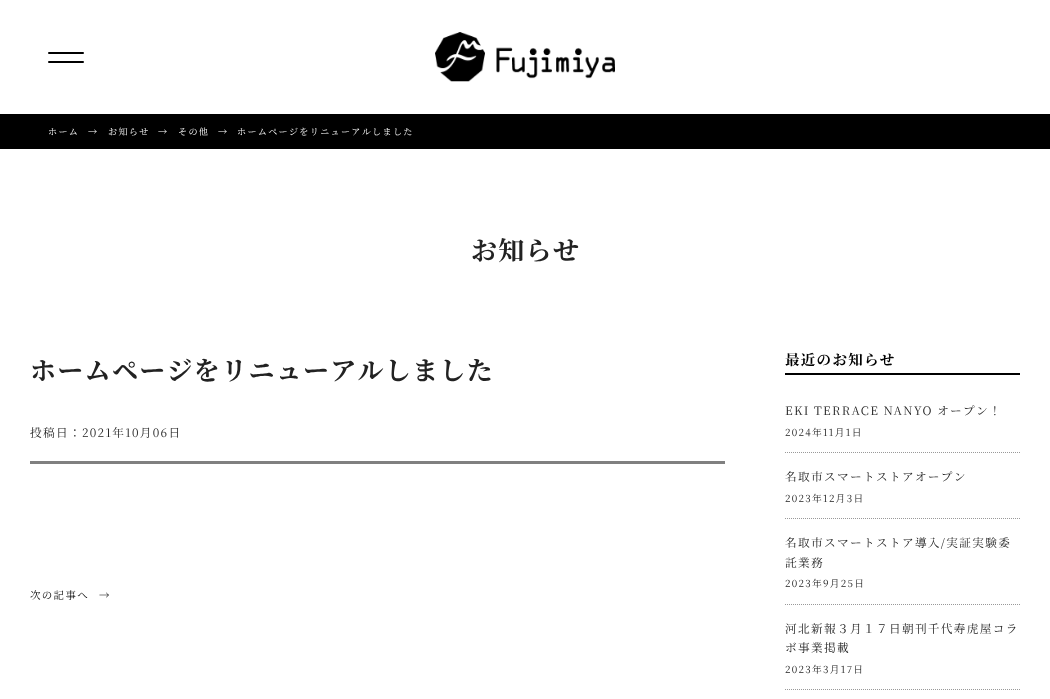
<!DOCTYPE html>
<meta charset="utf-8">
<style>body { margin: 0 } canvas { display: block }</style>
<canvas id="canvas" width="1050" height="699"></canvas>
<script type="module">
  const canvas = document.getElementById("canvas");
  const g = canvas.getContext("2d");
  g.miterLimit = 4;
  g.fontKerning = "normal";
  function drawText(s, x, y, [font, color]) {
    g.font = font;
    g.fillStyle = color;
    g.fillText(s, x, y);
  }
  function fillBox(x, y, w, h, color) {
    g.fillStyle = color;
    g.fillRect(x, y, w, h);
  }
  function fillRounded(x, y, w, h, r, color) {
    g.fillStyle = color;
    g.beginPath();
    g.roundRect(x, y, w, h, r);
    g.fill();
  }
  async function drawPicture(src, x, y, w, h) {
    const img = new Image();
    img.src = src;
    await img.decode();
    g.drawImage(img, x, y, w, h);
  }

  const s1 = ["9.1px Noto Serif JP", "#FFFFFF"];
  const s2 = ["bold 26px Noto Serif JP", "#222222"];
  const s3 = ["11.7px Noto Serif JP", "#222222"];
  const s4 = ["10.5px Noto Serif JP", "#000000"];
  const s5 = ["bold 14.5px Noto Serif JP", "#000000"];
  const s6 = ["9.75px Noto Serif JP", "#222222"];

  fillBox(0, 0, 1050, 699, "#FFFFFF");
  fillRounded(48, 52, 36, 2, 1, "#000000");
  fillRounded(48, 61, 36, 2, 1, "#000000");
  await drawPicture("pic1.png", 435, 32, 180, 50);
  fillBox(0, 114, 1050, 35, "#000000");
  g.letterSpacing = "1.3px";
  drawText("ホーム", 48, 135, s1);
  drawText("→", 88, 135, s1);
  drawText("お知らせ", 108, 135, s1);
  drawText("→", 158, 135, s1);
  drawText("その他", 178, 135, s1);
  drawText("→", 218, 135, s1);
  drawText("ホームページをリニューアルしました", 237, 135, s1);
  drawText("お知らせ", 471, 260, s2);
  fillBox(30, 461, 695, 3, "#808080");
  drawText("ホームページをリニューアルしました", 30, 380, s2);
  drawText("投稿日：2021年10月06日", 30, 437, s3);
  drawText("次の記事へ", 30, 599, s4);
  drawText("→", 99, 599, s4);
  fillBox(785, 373, 235, 2, "#000000");
  drawText("最近のお知らせ", 785, 365, s5);
  g.beginPath();
  g.moveTo(785, 452.5);
  g.lineTo(1020, 452.5);
  g.strokeStyle = "#999999";
  g.setLineDash([1, 1]);
  g.stroke();
  drawText("EKI TERRACE NANYO オープン！", 785, 415, s3);
  drawText("2024年11月1日", 785, 436, s6);
  g.beginPath();
  g.moveTo(785, 518.5);
  g.lineTo(1020, 518.5);
  g.stroke();
  drawText("名取市スマートストアオープン", 785, 481, s3);
  drawText("2023年12月3日", 785, 502, s6);
  g.beginPath();
  g.moveTo(785, 604.5);
  g.lineTo(1020, 604.5);
  g.stroke();
  drawText("名取市スマートストア導入/実証実験委", 785, 547, s3);
  drawText("託業務", 785, 567, s3);
  drawText("2023年9月25日", 785, 587, s6);
  g.beginPath();
  g.moveTo(785, 689.5);
  g.lineTo(1020, 689.5);
  g.stroke();
  drawText("河北新報３月１７日朝刊千代寿虎屋コラ", 785, 633, s3);
  drawText("ボ事業掲載", 785, 652, s3);
  drawText("2023年3月17日", 785, 673, s6);
</script>
